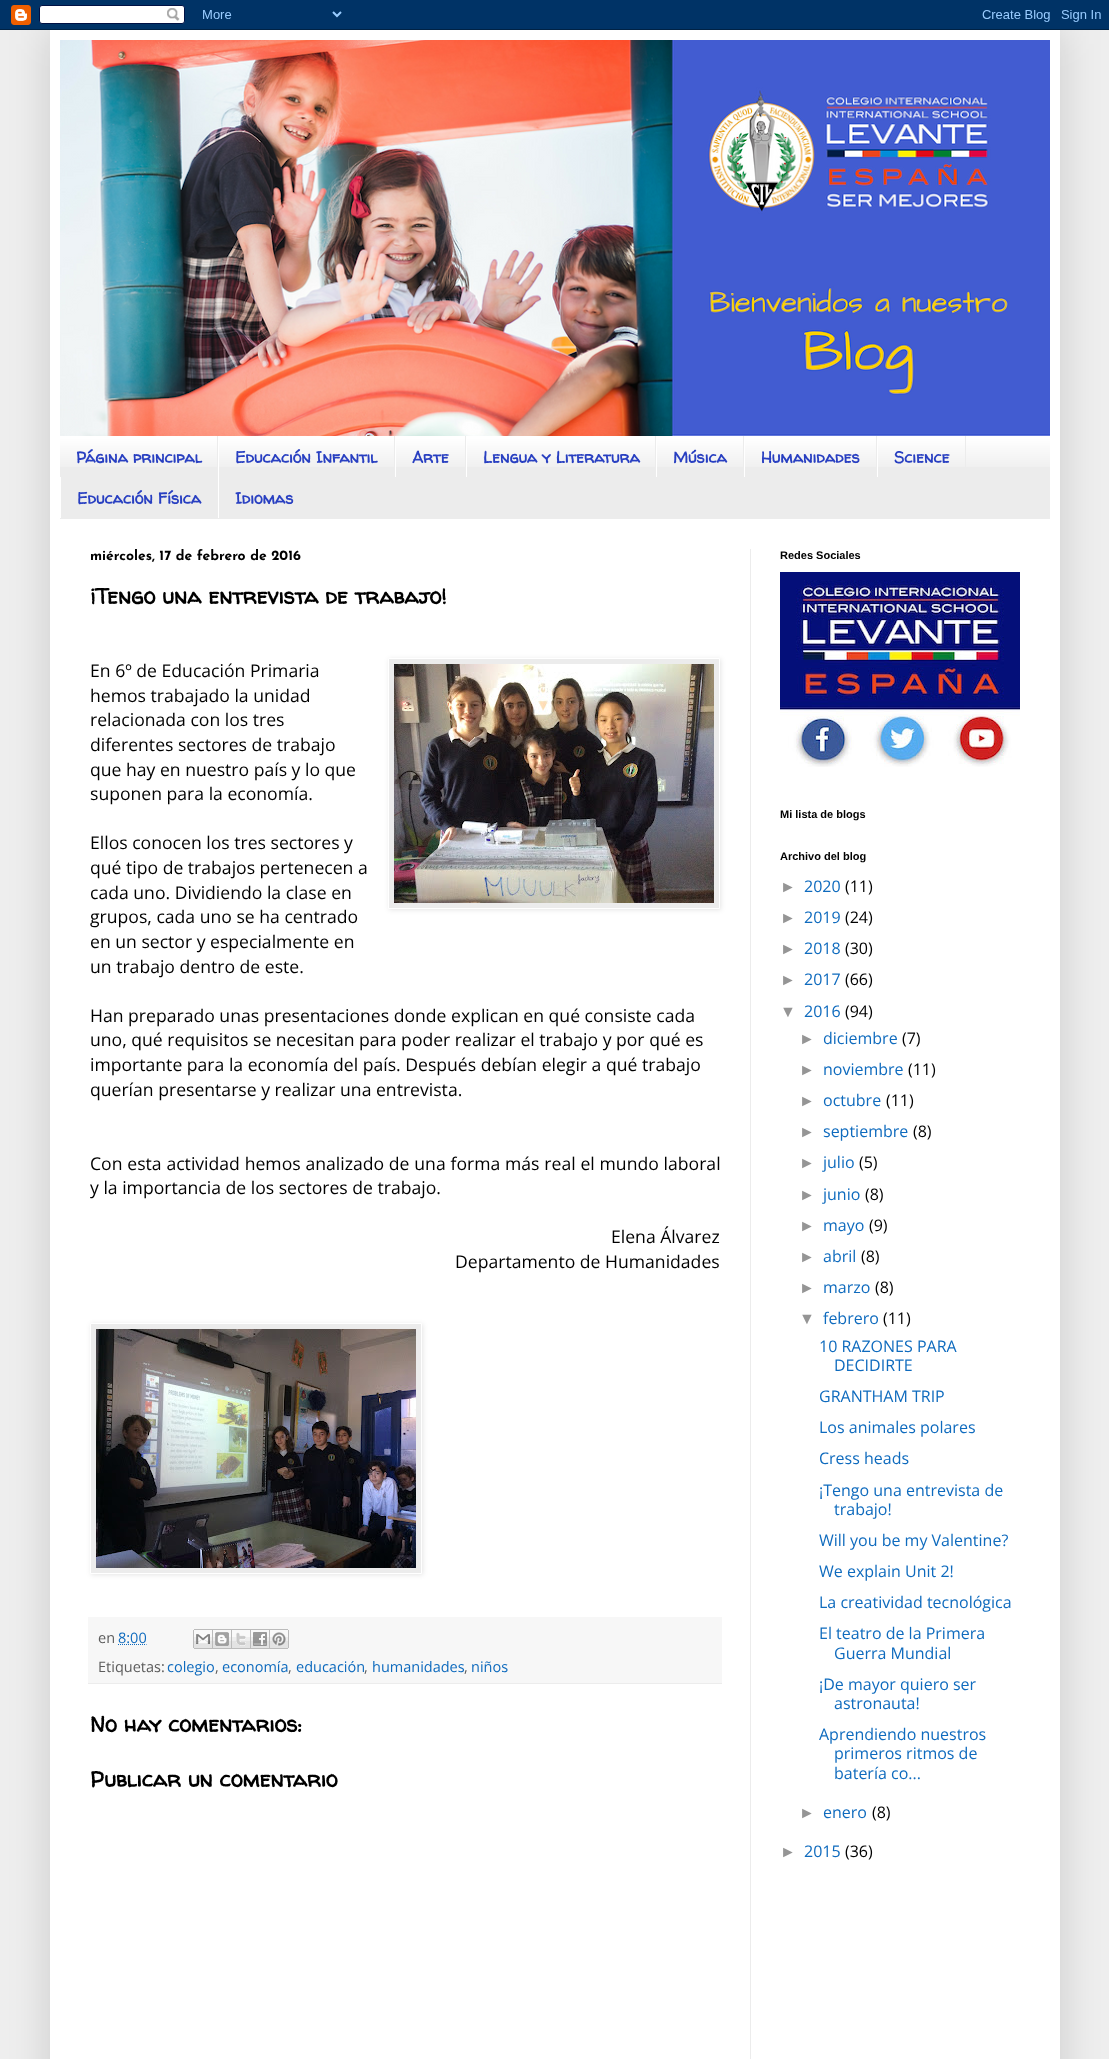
<!DOCTYPE html>
<meta charset="utf-8">
<style>body { margin: 0 } canvas { display: block }</style>
<canvas id="canvas" width="1109" height="2059"></canvas>
<script type="module">
  const canvas = document.getElementById("canvas");
  const g = canvas.getContext("2d");
  g.miterLimit = 4;
  g.fontKerning = "normal";
  function drawText(s, x, y, [font, color]) {
    g.font = font;
    g.fillStyle = color;
    g.fillText(s, x, y);
  }
  function fillBox(x, y, w, h, color) {
    g.fillStyle = color;
    g.fillRect(x, y, w, h);
  }
  async function drawPicture(src, x, y, w, h) {
    const img = new Image();
    img.src = src;
    await img.decode();
    g.drawImage(img, x, y, w, h);
  }

  const s1 = ["bold 16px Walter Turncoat", "#283FC1"];
  const s2 = ["100 14px Josefin Sans", "#000000"];
  const s3 = ["bold 22px Walter Turncoat", "#000000"];
  const s4 = ["17.6px Open Sans", "#000000"];
  const s5 = ["14.5px Open Sans", "#5D5D5D"];
  const s6 = ["14.5px Open Sans", "#0F6BBE"];
  const s7 = ["bold 11px Liberation Sans", "#000000"];
  const s8 = ["16px Liberation Sans", "#959595"];
  const s9 = ["16px Open Sans", "#0F6BBE"];
  const s10 = ["16px Open Sans", "#000000"];

  fillBox(0, 0, 1109, 2059, "#EEEEEE");
  g.fillStyle = "rgba(0, 0, 0, 0.15)";
  g.filter = "blur(20px)";
  g.beginPath();
  g.rect(50, 30, 1010, 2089);
  g.fill();
  g.filter = "none";
  await drawPicture("pic1.png", 0, 0, 1109, 30);
  fillBox(50, 30, 1010, 2029, "#FFFFFF");
  await drawPicture("pic2.png", 60, 40, 990, 396);
  fillBox(60, 437, 990, 82, "#ECECEC");
  await drawPicture("pic3.png", 60, 436, 990, 31);
  fillBox(217, 436, 1, 31, "#ECECEC");
  drawText("Página principal", 76, 463, s1);
  fillBox(394, 436, 1, 31, "#ECECEC");
  fillBox(218, 436, 1, 82, "#FFFFFF");
  drawText("Educación Infantil", 235, 463, s1);
  fillBox(465, 436, 1, 31, "#ECECEC");
  fillBox(395, 436, 1, 41, "#FFFFFF");
  drawText("Arte", 412, 463, s1);
  fillBox(655, 436, 1, 31, "#ECECEC");
  fillBox(466, 436, 1, 41, "#FFFFFF");
  drawText("Lengua y Literatura", 483, 463, s1);
  fillBox(743, 436, 1, 31, "#ECECEC");
  fillBox(656, 436, 1, 41, "#FFFFFF");
  drawText("Música", 673, 463, s1);
  fillBox(876, 436, 1, 31, "#ECECEC");
  fillBox(744, 436, 1, 41, "#FFFFFF");
  drawText("Humanidades", 761, 463, s1);
  fillBox(965, 436, 1, 31, "#ECECEC");
  fillBox(877, 436, 1, 41, "#FFFFFF");
  drawText("Science", 894, 463, s1);
  fillBox(60, 477, 1, 41, "#FFFFFF");
  drawText("Educación Física", 77, 504, s1);
  drawText("Idiomas", 235, 504, s1);
  drawText("miércoles, 17 de febrero de 2016", 90, 560, s2);
  drawText("¡Tengo una entrevista de trabajo!", 90, 604, s3);
  drawText("En 6º de Educación Primaria", 90, 677, s4);
  g.fillStyle = "rgba(0, 0, 0, 0.1)";
  g.filter = "blur(2.5px)";
  g.beginPath();
  g.rect(389, 659, 332, 251);
  g.fill();
  g.filter = "none";
  g.fillStyle = "#ECECEC";
  g.beginPath();
  g.rect(388.5, 658.5, 331, 250);
  g.fill();
  g.strokeStyle = "#FFFFFF";
  g.stroke();
  await drawPicture("pic4.png", 394, 664, 320, 239);
  drawText("hemos trabajado la unidad", 90, 702, s4);
  drawText("relacionada con los tres", 90, 726, s4);
  drawText("diferentes sectores de trabajo", 90, 751, s4);
  drawText("que hay en nuestro país y lo que", 90, 776, s4);
  drawText("suponen para la economía.", 90, 800, s4);
  drawText("Ellos conocen los tres sectores y", 90, 849, s4);
  drawText("qué tipo de trabajos pertenecen a", 90, 874, s4);
  drawText("cada uno. Dividiendo la clase en", 90, 899, s4);
  drawText("grupos, cada uno se ha centrado", 90, 923, s4);
  drawText("en un sector y especialmente en", 90, 948, s4);
  drawText("un trabajo dentro de este.", 90, 973, s4);
  drawText("Han preparado unas presentaciones donde explican en qué consiste cada", 90, 1022, s4);
  drawText("uno, qué requisitos se necesitan para poder realizar el trabajo y por qué es", 90, 1046, s4);
  drawText("importante para la economía del país. Después debían elegir a qué trabajo", 90, 1071, s4);
  drawText("querían presentarse y realizar una entrevista.", 90, 1096, s4);
  g.wordSpacing = "0.25px";
  drawText("Con esta actividad hemos analizado de una forma más real el mundo laboral", 90, 1170, s4);
  g.wordSpacing = "0px";
  drawText("y la importancia de los sectores de trabajo.", 90, 1194, s4);
  drawText("Elena Álvarez", 611, 1243, s4);
  drawText("Departamento de Humanidades", 455, 1268, s4);
  g.fillStyle = "rgba(0, 0, 0, 0.1)";
  g.filter = "blur(2.5px)";
  g.beginPath();
  g.rect(91, 1324, 332, 251);
  g.fill();
  g.filter = "none";
  g.fillStyle = "#ECECEC";
  g.beginPath();
  g.rect(90.5, 1323.5, 331, 250);
  g.fill();
  g.stroke();
  await drawPicture("pic5.png", 96, 1329, 320, 239);
  fillBox(88, 1617, 634, 66, "#F7F7F7");
  fillBox(88, 1683, 634, 1, "#ECECEC");
  drawText("en", 98, 1643, s5);
  drawText("8:00", 118, 1643, s6);
  g.beginPath();
  g.moveTo(118, 1644.5);
  g.lineTo(146.5, 1644.5);
  g.strokeStyle = "#0F6BBE";
  g.setLineDash([1, 1]);
  g.stroke();
  await drawPicture("pic6.png", 193, 1629, 20, 20);
  await drawPicture("pic7.png", 213, 1629, 19, 20);
  await drawPicture("pic8.png", 232, 1629, 19, 20);
  await drawPicture("pic9.png", 251, 1629, 19, 20);
  await drawPicture("pic10.png", 270, 1629, 19, 20);
  drawText("Etiquetas:", 98, 1672, s5);
  drawText("colegio", 167, 1672, s6);
  drawText(",", 215, 1672, s5);
  drawText("economía", 222, 1672, s6);
  drawText(",", 288, 1672, s5);
  drawText("educación", 296, 1672, s6);
  drawText(",", 364, 1672, s5);
  drawText("humanidades", 372, 1672, s6);
  drawText(",", 464, 1672, s5);
  drawText("niños", 471, 1672, s6);
  drawText("No hay comentarios:", 90, 1732, s3);
  drawText("Publicar un comentario", 90, 1787, s3);
  drawText("Redes Sociales", 780, 559, s7);
  await drawPicture("pic11.png", 780, 572, 240, 195);
  drawText("Mi lista de blogs", 780, 818, s7);
  drawText("Archivo del blog", 780, 860, s7);
  drawText("►", 780, 892, s8);
  drawText("2020", 804, 892, s9);
  drawText("(11)", 845, 892, s10);
  drawText("►", 780, 923, s8);
  drawText("2019", 804, 923, s9);
  drawText("(24)", 845, 923, s10);
  drawText("►", 780, 954, s8);
  drawText("2018", 804, 954, s9);
  drawText("(30)", 845, 954, s10);
  drawText("►", 780, 985, s8);
  drawText("2017", 804, 985, s9);
  drawText("(66)", 845, 985, s10);
  drawText("▼", 780, 1017, s8);
  drawText("2016", 804, 1017, s9);
  drawText("(94)", 845, 1017, s10);
  drawText("►", 799, 1044, s8);
  drawText("diciembre", 823, 1044, s9);
  drawText("(7)", 902, 1044, s10);
  drawText("►", 799, 1075, s8);
  drawText("noviembre", 823, 1075, s9);
  drawText("(11)", 908, 1075, s10);
  drawText("►", 799, 1106, s8);
  drawText("octubre", 823, 1106, s9);
  drawText("(11)", 886, 1106, s10);
  drawText("►", 799, 1137, s8);
  drawText("septiembre", 823, 1137, s9);
  drawText("(8)", 913, 1137, s10);
  drawText("►", 799, 1168, s8);
  drawText("julio", 823, 1168, s9);
  drawText("(5)", 859, 1168, s10);
  drawText("►", 799, 1200, s8);
  drawText("junio", 823, 1200, s9);
  drawText("(8)", 865, 1200, s10);
  drawText("►", 799, 1231, s8);
  drawText("mayo", 823, 1231, s9);
  drawText("(9)", 869, 1231, s10);
  drawText("►", 799, 1262, s8);
  drawText("abril", 823, 1262, s9);
  drawText("(8)", 861, 1262, s10);
  drawText("►", 799, 1293, s8);
  drawText("marzo", 823, 1293, s9);
  drawText("(8)", 875, 1293, s10);
  drawText("▼", 799, 1324, s8);
  drawText("febrero", 823, 1324, s9);
  drawText("(11)", 883, 1324, s10);
  drawText("10 RAZONES PARA", 819, 1352, s9);
  drawText("DECIDIRTE", 834, 1371, s9);
  drawText("GRANTHAM TRIP", 819, 1402, s9);
  drawText("Los animales polares", 819, 1433, s9);
  drawText("Cress heads", 819, 1464, s9);
  drawText("¡Tengo una entrevista de", 819, 1496, s9);
  drawText("trabajo!", 834, 1515, s9);
  drawText("Will you be my Valentine?", 819, 1546, s9);
  drawText("We explain Unit 2!", 819, 1577, s9);
  drawText("La creatividad tecnológica", 819, 1608, s9);
  drawText("El teatro de la Primera", 819, 1639, s9);
  drawText("Guerra Mundial", 834, 1659, s9);
  drawText("¡De mayor quiero ser", 819, 1690, s9);
  drawText("astronauta!", 834, 1709, s9);
  drawText("Aprendiendo nuestros", 819, 1740, s9);
  drawText("primeros ritmos de", 834, 1759, s9);
  drawText("batería co...", 834, 1779, s9);
  drawText("►", 799, 1818, s8);
  drawText("enero", 823, 1818, s9);
  drawText("(8)", 872, 1818, s10);
  drawText("►", 780, 1857, s8);
  drawText("2015", 804, 1857, s9);
  drawText("(36)", 845, 1857, s10);
  fillBox(750, 549, 1, 1510, "#ECECEC");
</script>
